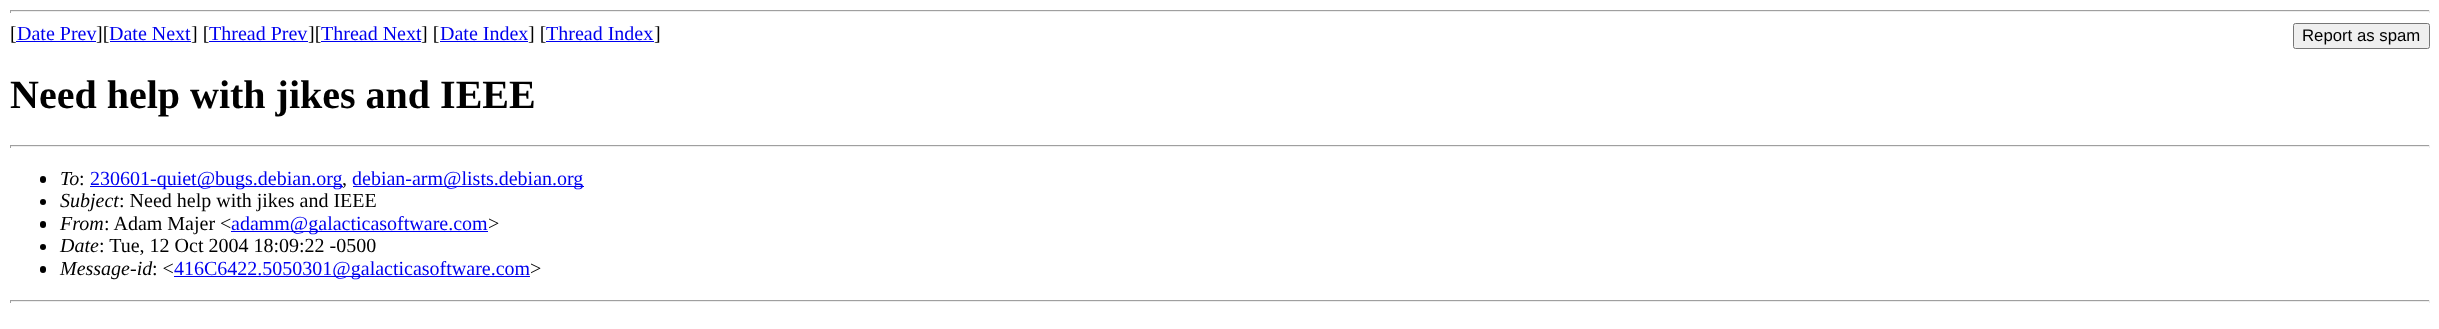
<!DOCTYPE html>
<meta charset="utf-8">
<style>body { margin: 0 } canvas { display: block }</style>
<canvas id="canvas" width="2439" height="329"></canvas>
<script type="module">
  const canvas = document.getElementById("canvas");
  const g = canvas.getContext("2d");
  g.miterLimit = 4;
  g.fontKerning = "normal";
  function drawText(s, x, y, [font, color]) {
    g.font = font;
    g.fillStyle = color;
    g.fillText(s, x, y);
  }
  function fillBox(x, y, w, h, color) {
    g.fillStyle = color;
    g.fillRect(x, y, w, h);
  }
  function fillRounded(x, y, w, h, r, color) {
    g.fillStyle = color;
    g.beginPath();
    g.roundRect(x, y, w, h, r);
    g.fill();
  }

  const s1 = ["20px Liberation Serif", "#000000"];
  const s2 = ["20px Liberation Serif", "#0000EE"];
  const s3 = ["16.75px Liberation Sans", "#000000"];
  const s4 = ["bold 40px Liberation Serif", "#000000"];
  const s5 = ["italic 20px Liberation Serif", "#000000"];

  fillBox(0, 0, 2439, 329, "#FFFFFF");
  fillBox(10, 10, 2420, 1, "#9F9F9F");
  fillBox(2429, 10, 1, 3, "#EEEEEE");
  fillBox(10, 11, 2420, 1, "#EEEEEE");
  fillBox(10, 10, 1, 3, "#9F9F9F");
  drawText("[", 10, 40, s1);
  drawText("Date Prev", 17, 40, s2);
  fillBox(16, 41, 80, 1, "#0000EE");
  drawText("][", 96, 40, s1);
  drawText("Date Next", 109, 40, s2);
  fillBox(110, 41, 81, 1, "#0000EE");
  drawText("] [", 191, 40, s1);
  drawText("Thread Prev", 209, 40, s2);
  fillBox(209, 41, 99, 1, "#0000EE");
  drawText("][", 308, 40, s1);
  drawText("Thread Next", 321, 40, s2);
  fillBox(321, 41, 100, 1, "#0000EE");
  drawText("] [", 421, 40, s1);
  drawText("Date Index", 440, 40, s2);
  fillBox(440, 41, 88, 1, "#0000EE");
  drawText("] [", 528, 40, s1);
  drawText("Thread Index", 546, 40, s2);
  fillBox(546, 41, 108, 1, "#0000EE");
  drawText("]", 654, 40, s1);
  g.fillStyle = "#EFEFEF";
  g.beginPath();
  g.roundRect(2293.5, 23.5, 136, 25, 2);
  g.fill();
  g.strokeStyle = "#767676";
  g.stroke();
  drawText("Report as spam", 2302, 41, s3);
  drawText("Need help with jikes and IEEE", 10, 108, s4);
  fillBox(10, 145, 2420, 1, "#9F9F9F");
  fillBox(2429, 145, 1, 3, "#EEEEEE");
  fillBox(10, 146, 2420, 1, "#EEEEEE");
  fillBox(10, 145, 1, 3, "#9F9F9F");
  fillRounded(40, 176, 6, 7, 3, "#000000");
  drawText("To", 60, 185, s5);
  drawText(":", 79, 185, s1);
  fillBox(90, 186, 253, 1, "#0000EE");
  drawText("230601-quiet@bugs.debian.org", 90, 185, s2);
  fillBox(353, 186, 231, 1, "#0000EE");
  drawText("debian-arm@lists.debian.org", 352, 185, s2);
  drawText(",", 342, 185, s1);
  g.beginPath();
  g.arc(43, 202, 3, 0, Math.PI * 2);
  g.fill();
  drawText("Subject", 60, 207, s5);
  drawText(": Need help with jikes and IEEE", 119, 207, s1);
  fillRounded(40, 221, 6, 7, 3, "#000000");
  drawText("From", 60, 230, s5);
  drawText(": Adam Majer <", 104, 230, s1);
  fillBox(231, 231, 257, 1, "#0000EE");
  drawText("adamm@galacticasoftware.com", 231, 230, s2);
  drawText(">", 488, 230, s1);
  g.beginPath();
  g.arc(43, 247, 3, 0, Math.PI * 2);
  g.fill();
  drawText("Date", 60, 252, s5);
  drawText(": Tue, 12 Oct 2004 18:09:22 -0500", 99, 252, s1);
  fillRounded(40, 266, 6, 7, 3, "#000000");
  drawText("Message-id", 60, 275, s5);
  drawText(": <", 152, 275, s1);
  fillBox(174, 276, 356, 1, "#0000EE");
  drawText("416C6422.5050301@galacticasoftware.com", 174, 275, s2);
  drawText(">", 530, 275, s1);
  fillBox(10, 300, 2420, 1, "#9F9F9F");
  fillBox(2429, 300, 1, 3, "#EEEEEE");
  fillBox(10, 301, 2420, 1, "#EEEEEE");
  fillBox(10, 300, 1, 3, "#9F9F9F");
</script>
